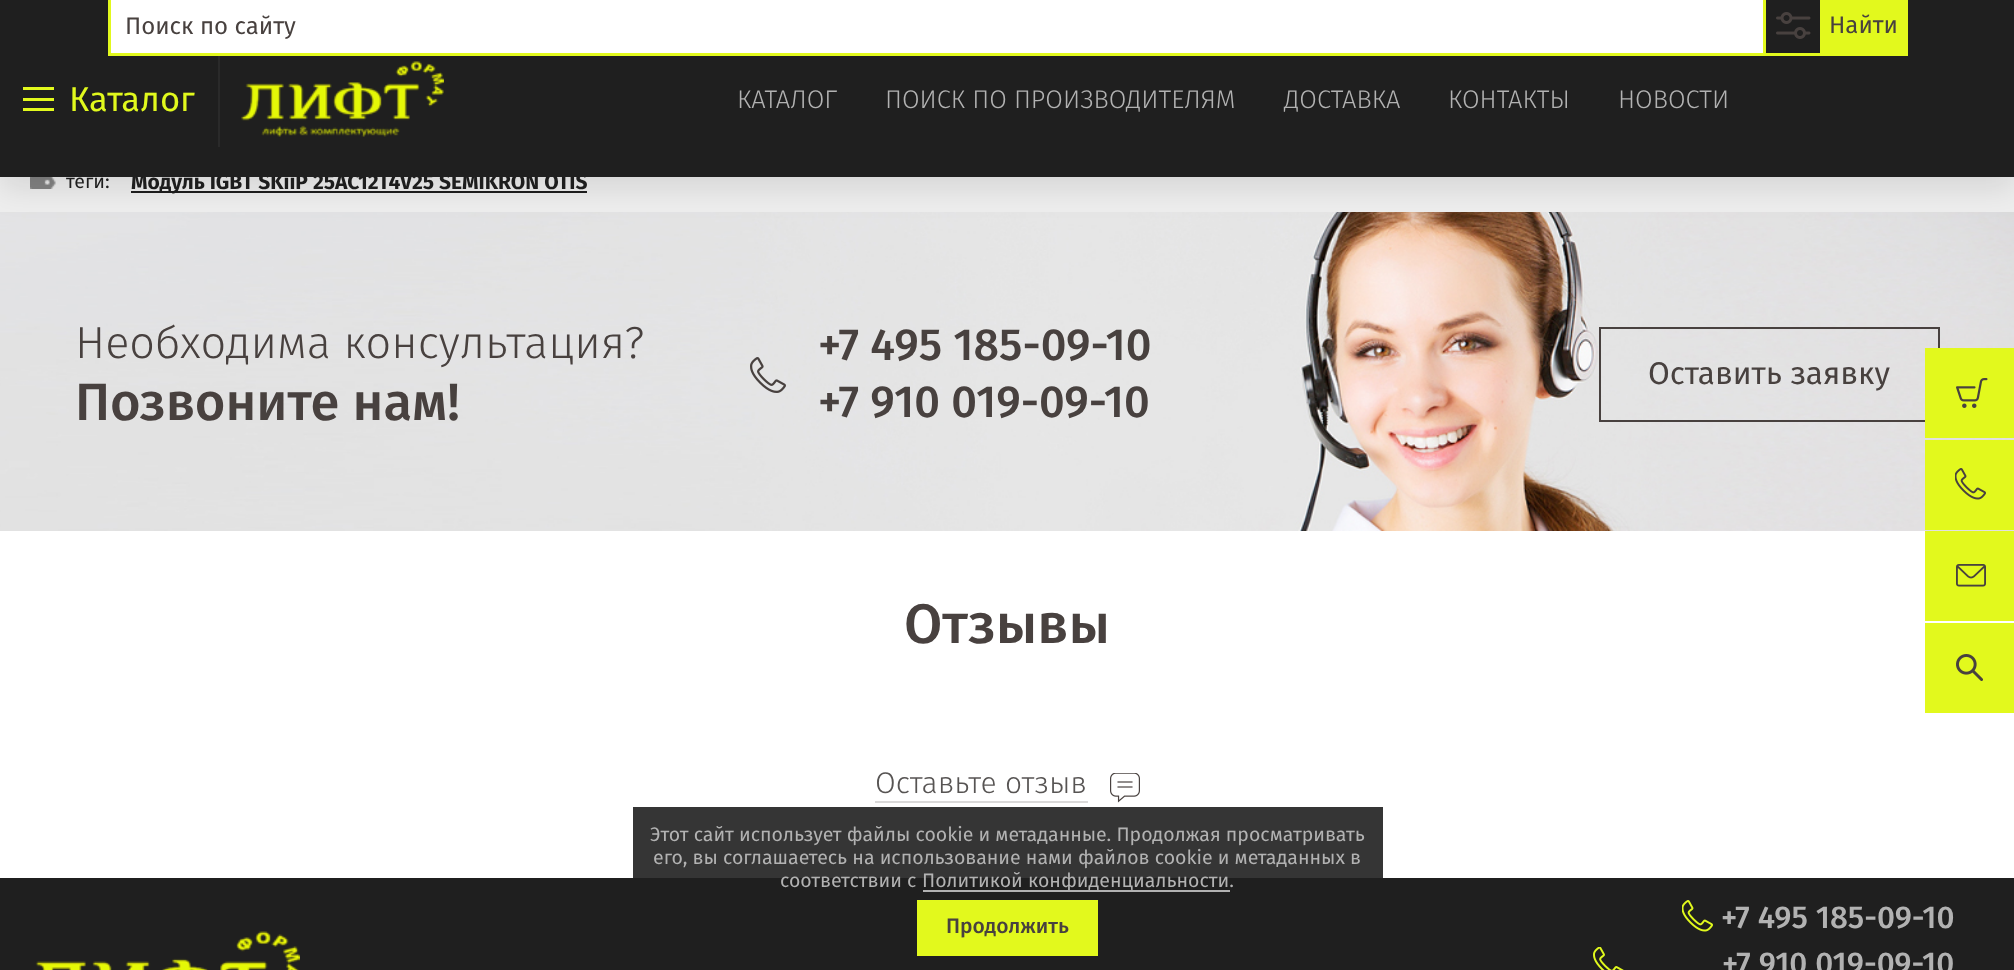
<!DOCTYPE html>
<meta charset="utf-8">
<style>body { margin: 0 } canvas { display: block }</style>
<canvas id="canvas" width="2014" height="970"></canvas>
<script type="module">
  const canvas = document.getElementById("canvas");
  const g = canvas.getContext("2d");
  g.miterLimit = 4;
  g.fontKerning = "normal";
  function drawText(s, x, y, [font, color]) {
    g.font = font;
    g.fillStyle = color;
    g.fillText(s, x, y);
  }
  function fillBox(x, y, w, h, color) {
    g.fillStyle = color;
    g.fillRect(x, y, w, h);
  }
  async function drawPicture(src, x, y, w, h) {
    const img = new Image();
    img.src = src;
    await img.decode();
    g.drawImage(img, x, y, w, h);
  }

  const s1 = ["bold 21px Fira Sans", "#1D1D1D"];
  const s2 = ["24px Fira Sans", "#48413F"];
  const s3 = ["34.5px Fira Sans", "#E1F91D"];
  const s4 = ["300 25.5px Fira Sans", "#B2B2B2"];
  const s5 = ["19.5px Fira Sans", "#1D1D1D"];
  const s6 = ["300 45px Fira Sans", "#48413F"];
  const s7 = ["500 52.5px Fira Sans", "#48413F"];
  const s8 = ["500 45px Fira Sans", "#48413F"];
  const s9 = ["31.5px Fira Sans", "#48413F"];
  const s10 = ["500 55.5px Fira Sans", "#48413F"];
  const s11 = ["300 30px Fira Sans", "#575453"];
  const s12 = ["500 31.5px Fira Sans", "#B2B2B2"];
  const s13 = ["19.5px Fira Sans", "#B2B2B2"];
  const s14 = ["500 21px Fira Sans", "#48413F"];

  fillBox(0, 0, 2014, 970, "#FFFFFF");
  fillBox(633, 807, 750, 71, "#353535");
  fillBox(0, 177, 2014, 35, "#EEEEEE");
  await drawPicture("pic3.png", 30, 177, 26, 12);
  fillBox(131, 191, 456, 2, "#1F1F1F");
  await drawPicture("pic4.png", 0, 212, 2014, 319);
  g.fillStyle = "rgba(0, 0, 0, 0.1)";
  g.filter = "blur(15px)";
  g.beginPath();
  g.rect(0, 12, 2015, 177);
  g.fill();
  g.filter = "none";
  drawText("Модуль IGBT SKiiP 25AC12T4V25 SEMIKRON OTIS", 131, 189, s1);
  fillBox(0, 0, 2014, 177, "#1F1F1F");
  fillBox(218, 51, 2, 96, "#2A2A2A");
  g.fillStyle = "#FFFFFF";
  g.beginPath();
  g.rect(109.5, -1.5, 1655, 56);
  g.fill();
  g.strokeStyle = "#E2F91D";
  g.lineWidth = 3;
  g.stroke();
  drawText("Поиск по сайту", 125, 34, s2);
  await drawPicture("pic1.png", 1776, 12, 35, 27);
  fillBox(1766, 53, 54, 3, "#E2F91D");
  fillBox(1820, 0, 88, 56, "#E2F91D");
  drawText("Найти", 1829, 33, s2);
  fillBox(23, 87, 31, 3, "#E2F91D");
  fillBox(23, 98, 31, 3, "#E2F91D");
  fillBox(23, 108, 31, 3, "#E2F91D");
  drawText("Каталог", 69, 111, s3);
  await drawPicture("pic2.png", 241, 61, 203, 76);
  drawText("КАТАЛОГ", 737, 108, s4);
  drawText("ПОИСК ПО ПРОИЗВОДИТЕЛЯМ", 885, 108, s4);
  drawText("ДОСТАВКА", 1284, 108, s4);
  drawText("КОНТАКТЫ", 1448, 108, s4);
  drawText("НОВОСТИ", 1618, 108, s4);
  drawText("теги:", 66, 188, s5);
  drawText("Необходима консультация?", 75, 358, s6);
  drawText("Позвоните нам!", 75, 420, s7);
  await drawPicture("pic5.png", 750, 357, 36, 36);
  drawText("+7 495 185-09-10", 818, 360, s8);
  drawText("+7 910 019-09-10", 818, 417, s8);
  g.strokeStyle = "#48413F";
  g.lineWidth = 2;
  g.strokeRect(1600, 328, 339, 93);
  drawText("Оставить заявку", 1648, 384, s9);
  drawText("Отзывы", 904, 643, s10);
  fillBox(875, 801, 213, 2, "#DAD9D9");
  drawText("Оставьте отзыв", 875, 793, s11);
  await drawPicture("pic6.png", 1110, 773, 30, 30);
  fillBox(0, 878, 2014, 92, "#1F1F1F");
  await drawPicture("pic7.png", 35, 931, 265, 39);
  await drawPicture("pic8.png", 1682, 900, 31, 32);
  drawText("+7 495 185-09-10", 1721, 928, s12);
  await drawPicture("pic9.png", 1593, 947, 31, 23);
  drawText("+7 910 019-09-10", 1722, 974, s12);
  fillBox(1925, 348, 89, 90, "#E2F91D");
  await drawPicture("pic10.png", 1956, 378, 32, 30);
  fillBox(1925, 440, 89, 90, "#E2F91D");
  await drawPicture("pic11.png", 1955, 468, 31, 32);
  fillBox(1925, 531, 89, 90, "#E2F91D");
  await drawPicture("pic12.png", 1956, 564, 30, 23);
  fillBox(1925, 623, 89, 90, "#E2F91D");
  await drawPicture("pic13.png", 1956, 654, 27, 27);
  drawText("Этот сайт использует файлы cookie и метаданные. Продолжая просматривать", 650, 841, s13);
  drawText("его, вы соглашаетесь на использование нами файлов cookie и метаданных в", 653, 864, s13);
  drawText("соответствии с", 780, 887, s13);
  fillBox(923, 890, 307, 2, "#B2B2B2");
  drawText("Политикой конфиденциальности.", 922, 887, s13);
  fillBox(917, 900, 181, 56, "#E2F91D");
  drawText("Продолжить", 946, 933, s14);
</script>
